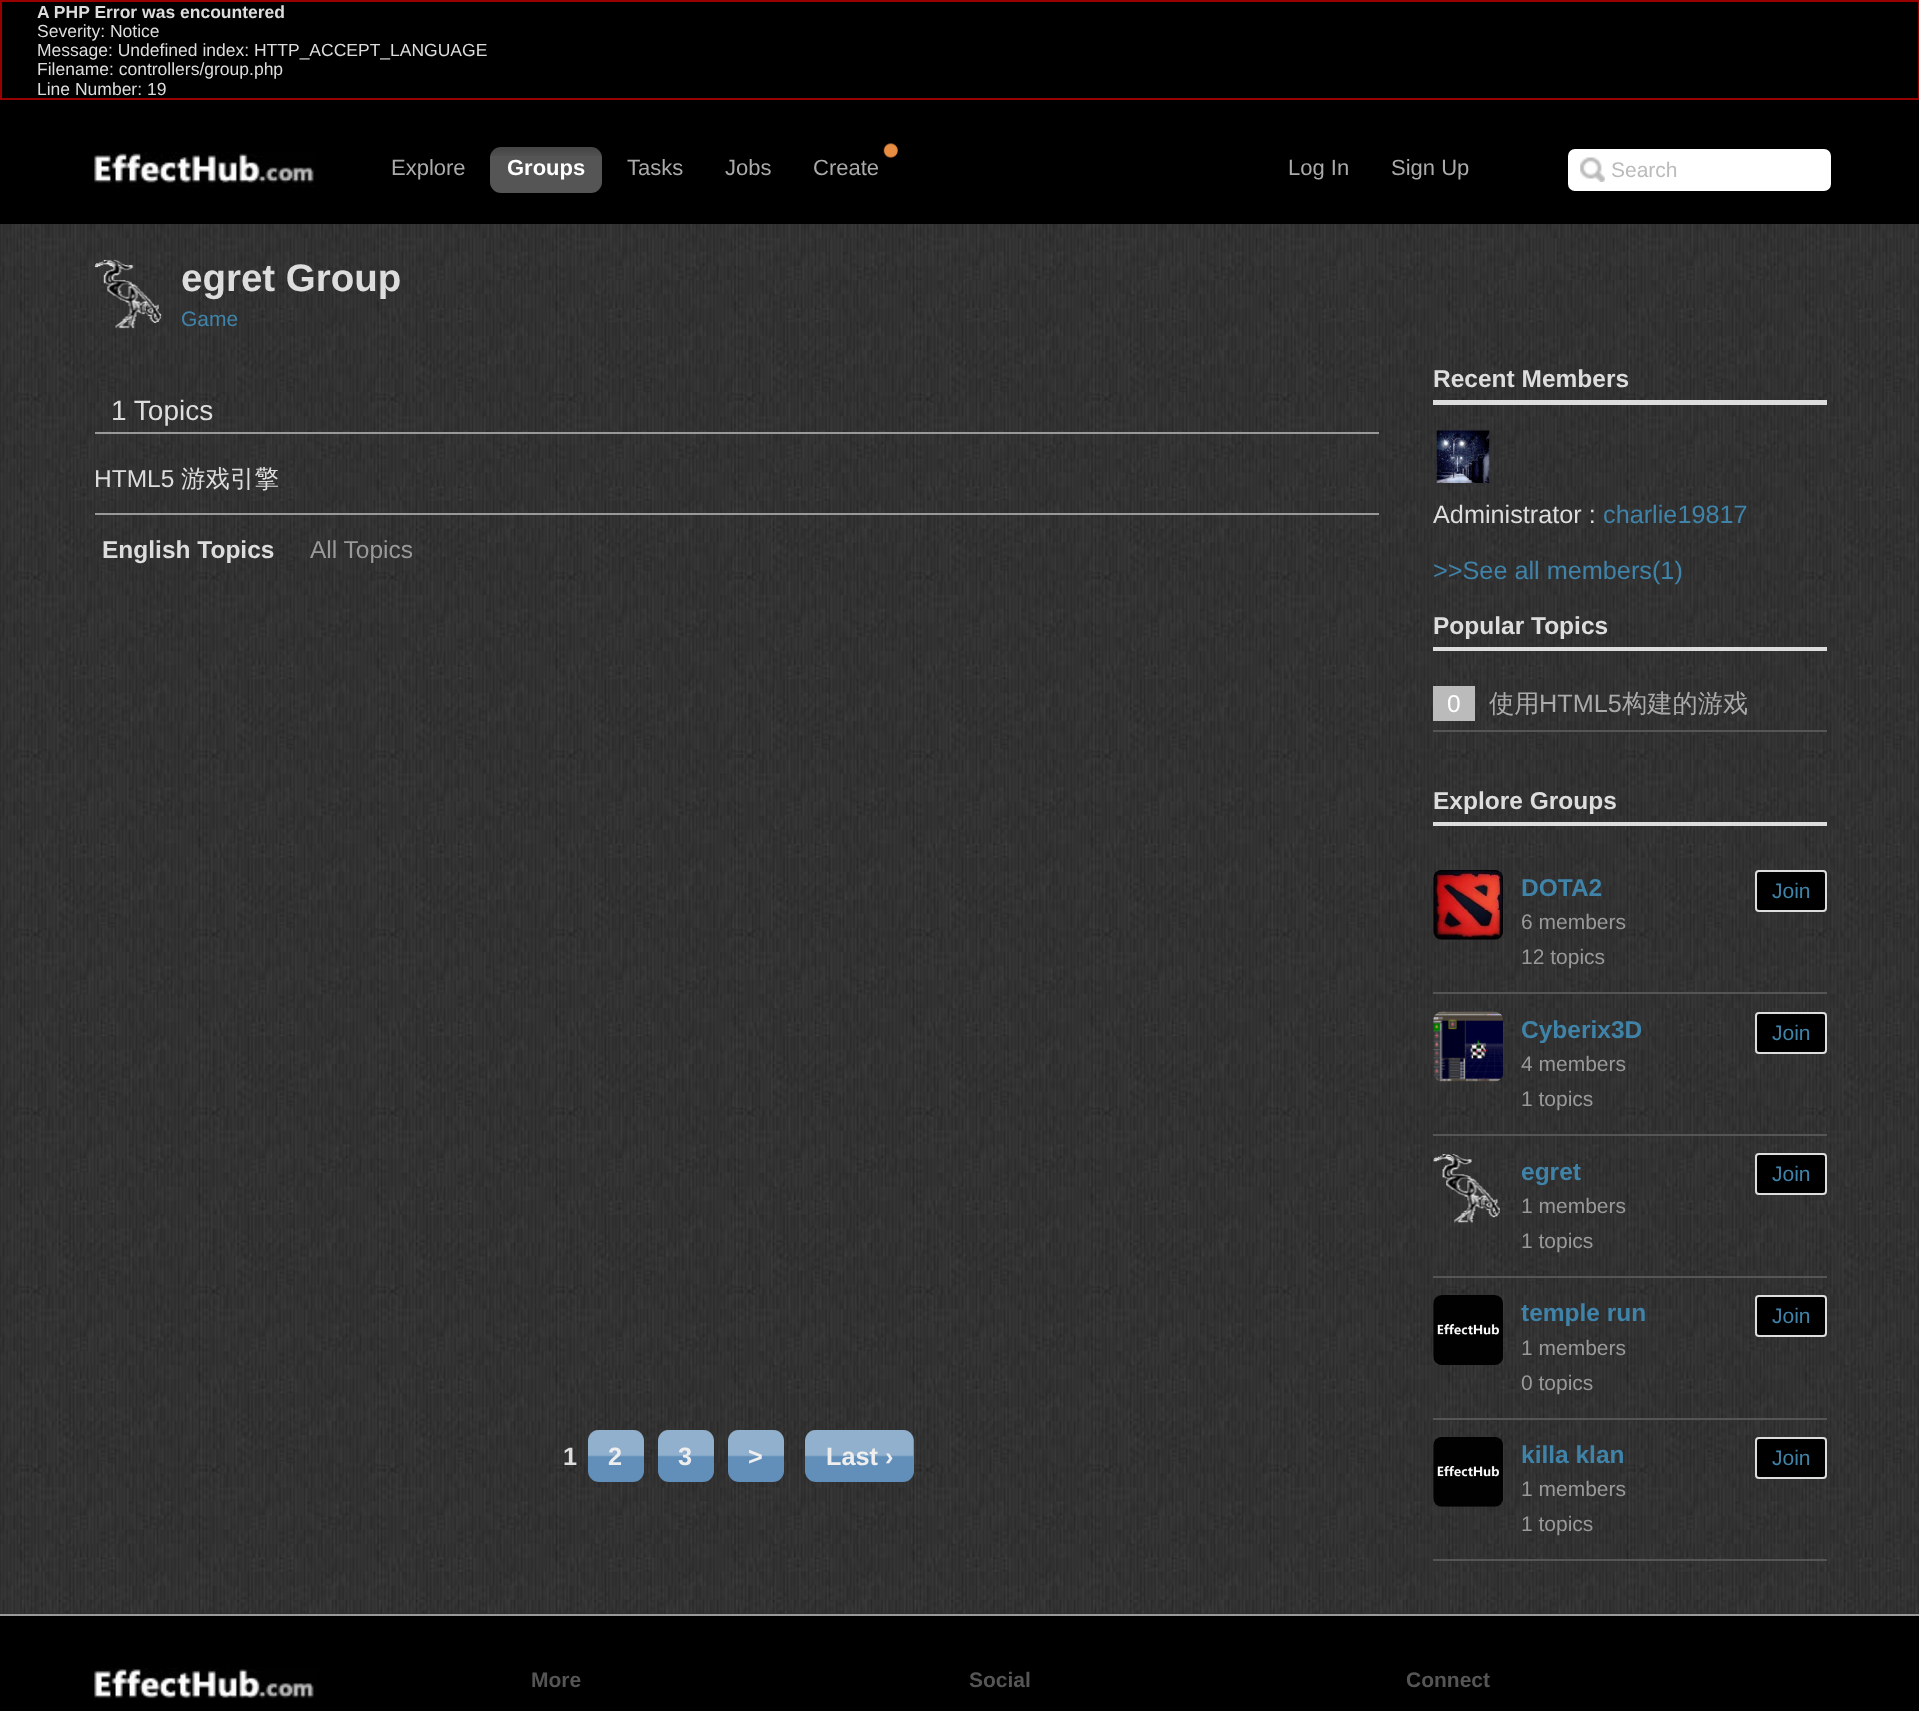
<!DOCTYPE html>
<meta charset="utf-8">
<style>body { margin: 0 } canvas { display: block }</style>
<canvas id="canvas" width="1919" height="1711"></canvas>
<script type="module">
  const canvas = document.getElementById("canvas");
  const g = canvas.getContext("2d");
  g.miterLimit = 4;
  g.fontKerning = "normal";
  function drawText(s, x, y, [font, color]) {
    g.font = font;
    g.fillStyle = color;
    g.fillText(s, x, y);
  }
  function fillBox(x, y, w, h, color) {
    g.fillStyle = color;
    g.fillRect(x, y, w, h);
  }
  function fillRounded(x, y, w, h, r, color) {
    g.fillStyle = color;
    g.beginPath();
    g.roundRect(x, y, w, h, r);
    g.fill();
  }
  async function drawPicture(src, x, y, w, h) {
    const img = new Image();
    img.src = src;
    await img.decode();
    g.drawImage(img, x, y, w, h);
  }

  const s1 = ["bold 17.5px Liberation Sans", "#DDDDDD"];
  const s2 = ["17.5px Liberation Sans", "#DDDDDD"];
  const s3 = ["22px Liberation Sans", "#AAAAAA"];
  const s4 = ["bold 22px Liberation Sans", "#FFFFFF"];
  const s5 = ["21px Liberation Sans", "#BBBBBB"];
  const s6 = ["bold 38.5px Liberation Sans", "#DDDDDD"];
  const s7 = ["21px Liberation Sans", "#4083A9"];
  const s8 = ["28px Liberation Sans", "#DDDDDD"];
  const s9 = ["24.5px Liberation Sans", "#DDDDDD"];
  const s10 = ["500 24.5px WenQuanYi Zen Hei", "#DDDDDD"];
  const s11 = ["bold 24.5px Liberation Sans", "#DDDDDD"];
  const s12 = ["24.5px Liberation Sans", "#999999"];
  const s13 = ["bold 25.25px Liberation Sans", "#DDDDDD"];
  const s14 = ["bold 25.25px Liberation Sans", "#EEEEEE"];
  const s15 = ["25.25px Liberation Sans", "#DDDDDD"];
  const s16 = ["25.25px Liberation Sans", "#4083A9"];
  const s17 = ["24.5px Liberation Sans", "#FFFFFF"];
  const s18 = ["500 25.25px WenQuanYi Zen Hei", "#AAAAAA"];
  const s19 = ["25.25px Liberation Sans", "#AAAAAA"];
  const s20 = ["bold 24.5px Liberation Sans", "#4083A9"];
  const s21 = ["21px Liberation Sans", "#999999"];
  const s22 = ["bold 21px Liberation Sans", "#555555"];

  fillBox(0, 0, 1919, 1711, "#000000");
  g.strokeStyle = "#990000";
  g.lineWidth = 2;
  g.strokeRect(1, 1, 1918, 98);
  drawText("A PHP Error was encountered", 37, 18, s1);
  drawText("Severity: Notice", 37, 37, s2);
  drawText("Message: Undefined index: HTTP_ACCEPT_LANGUAGE", 37, 56, s2);
  drawText("Filename: controllers/group.php", 37, 75, s2);
  drawText("Line Number: 19", 37, 95, s2);
  await drawPicture("pic1.png", 94, 152, 222, 35);
  drawText("Explore", 391, 175, s3);
  fillRounded(490, 147, 112, 46, 11, "#555555");
  await drawPicture("pic2.png", 491, 147, 110, 9);
  drawText("Groups", 507, 175, s4);
  drawText("Tasks", 627, 175, s3);
  drawText("Jobs", 725, 175, s3);
  await drawPicture("pic3.png", 883, 143, 15, 15);
  drawText("Create", 813, 175, s3);
  drawText("Log In", 1288, 175, s3);
  drawText("Sign Up", 1391, 175, s3);
  fillRounded(1568, 149, 263, 42, 7, "#FFFFFF");
  await drawPicture("pic4.png", 1580, 157, 25, 25);
  drawText("Search", 1611, 177, s5);
  fillBox(0, 1613, 1919, 1, "#2D2D2F");
  await drawPicture("pic5.png", 0, 224, 1919, 1390);
  await drawPicture("pic6.png", 94, 259, 68, 70);
  drawText("egret Group", 181, 291, s6);
  drawText("Game", 181, 326, s7);
  fillBox(95, 432, 1284, 2, "#999999");
  drawText("1 Topics", 111, 420, s8);
  fillBox(95, 513, 1284, 2, "#999999");
  drawText("HTML5", 94, 487, s9);
  drawText("游戏引擎", 181, 487, s10);
  drawText("English Topics", 102, 558, s11);
  drawText("All Topics", 310, 558, s12);
  drawText("1", 563, 1465, s13);
  fillRounded(588, 1430, 56, 52, 11, "#618FB9");
  await drawPicture("pic7.png", 588, 1430, 56, 27);
  fillRounded(658, 1430, 56, 52, 11, "#618FB9");
  await drawPicture("pic8.png", 658, 1430, 56, 27);
  fillRounded(728, 1430, 56, 52, 11, "#618FB9");
  await drawPicture("pic9.png", 728, 1430, 56, 27);
  fillRounded(805, 1430, 109, 52, 11, "#618FB9");
  await drawPicture("pic10.png", 805, 1430, 109, 27);
  drawText("2", 608, 1465, s14);
  drawText("3", 678, 1465, s14);
  drawText(">", 748, 1465, s14);
  drawText("Last ›", 826, 1465, s14);
  fillBox(1433, 400, 394, 5, "#DDDDDD");
  drawText("Recent Members", 1433, 387, s11);
  await drawPicture("pic11.png", 1436, 430, 54, 53);
  drawText("Administrator :", 1433, 523, s15);
  drawText("charlie19817", 1603, 523, s16);
  drawText(">>See all members(1)", 1433, 579, s16);
  fillBox(1433, 647, 394, 4, "#DDDDDD");
  drawText("Popular Topics", 1433, 634, s11);
  fillBox(1433, 730, 394, 2, "#555555");
  fillBox(1433, 686, 42, 35, "#BBBBBB");
  drawText("0", 1447, 712, s17);
  drawText("使用", 1489, 712, s18);
  drawText("HTML5", 1539, 712, s19);
  drawText("构建的游戏", 1622, 712, s18);
  fillBox(1433, 822, 394, 4, "#DDDDDD");
  drawText("Explore Groups", 1433, 809, s11);
  fillBox(1433, 992, 394, 2, "#555555");
  await drawPicture("pic12.png", 1433, 870, 70, 70);
  drawText("DOTA2", 1521, 896, s20);
  drawText("6 members", 1521, 929, s21);
  drawText("12 topics", 1521, 964, s21);
  g.fillStyle = "#000000";
  g.beginPath();
  g.roundRect(1756, 871, 70, 40, 3);
  g.fill();
  g.strokeStyle = "#DDDDDD";
  g.stroke();
  drawText("Join", 1772, 898, s7);
  fillBox(1433, 1134, 394, 2, "#555555");
  await drawPicture("pic13.png", 1433, 1011, 70, 71);
  drawText("Cyberix3D", 1521, 1038, s20);
  drawText("4 members", 1521, 1071, s21);
  drawText("1 topics", 1521, 1106, s21);
  g.fillStyle = "#000000";
  g.beginPath();
  g.roundRect(1756, 1013, 70, 40, 3);
  g.fill();
  g.stroke();
  drawText("Join", 1772, 1040, s7);
  fillBox(1433, 1276, 394, 2, "#555555");
  await drawPicture("pic14.png", 1433, 1154, 67, 69);
  drawText("egret", 1521, 1180, s20);
  drawText("1 members", 1521, 1213, s21);
  drawText("1 topics", 1521, 1248, s21);
  g.fillStyle = "#000000";
  g.beginPath();
  g.roundRect(1756, 1154, 70, 40, 3);
  g.fill();
  g.stroke();
  drawText("Join", 1772, 1181, s7);
  fillBox(1433, 1418, 394, 2, "#555555");
  await drawPicture("pic15.png", 1433, 1295, 70, 70);
  drawText("temple run", 1521, 1321, s20);
  drawText("1 members", 1521, 1355, s21);
  drawText("0 topics", 1521, 1390, s21);
  g.fillStyle = "#000000";
  g.beginPath();
  g.roundRect(1756, 1296, 70, 40, 3);
  g.fill();
  g.stroke();
  drawText("Join", 1772, 1323, s7);
  fillBox(1433, 1559, 394, 2, "#555555");
  await drawPicture("pic16.png", 1433, 1437, 70, 70);
  drawText("killa klan", 1521, 1463, s20);
  drawText("1 members", 1521, 1496, s21);
  drawText("1 topics", 1521, 1531, s21);
  g.fillStyle = "#000000";
  g.beginPath();
  g.roundRect(1756, 1438, 70, 40, 3);
  g.fill();
  g.stroke();
  drawText("Join", 1772, 1465, s7);
  fillBox(0, 1614, 1919, 2, "#999999");
  await drawPicture("pic17.png", 94, 1668, 224, 31);
  drawText("More", 531, 1687, s22);
  drawText("Social", 969, 1687, s22);
  drawText("Connect", 1406, 1687, s22);
</script>
